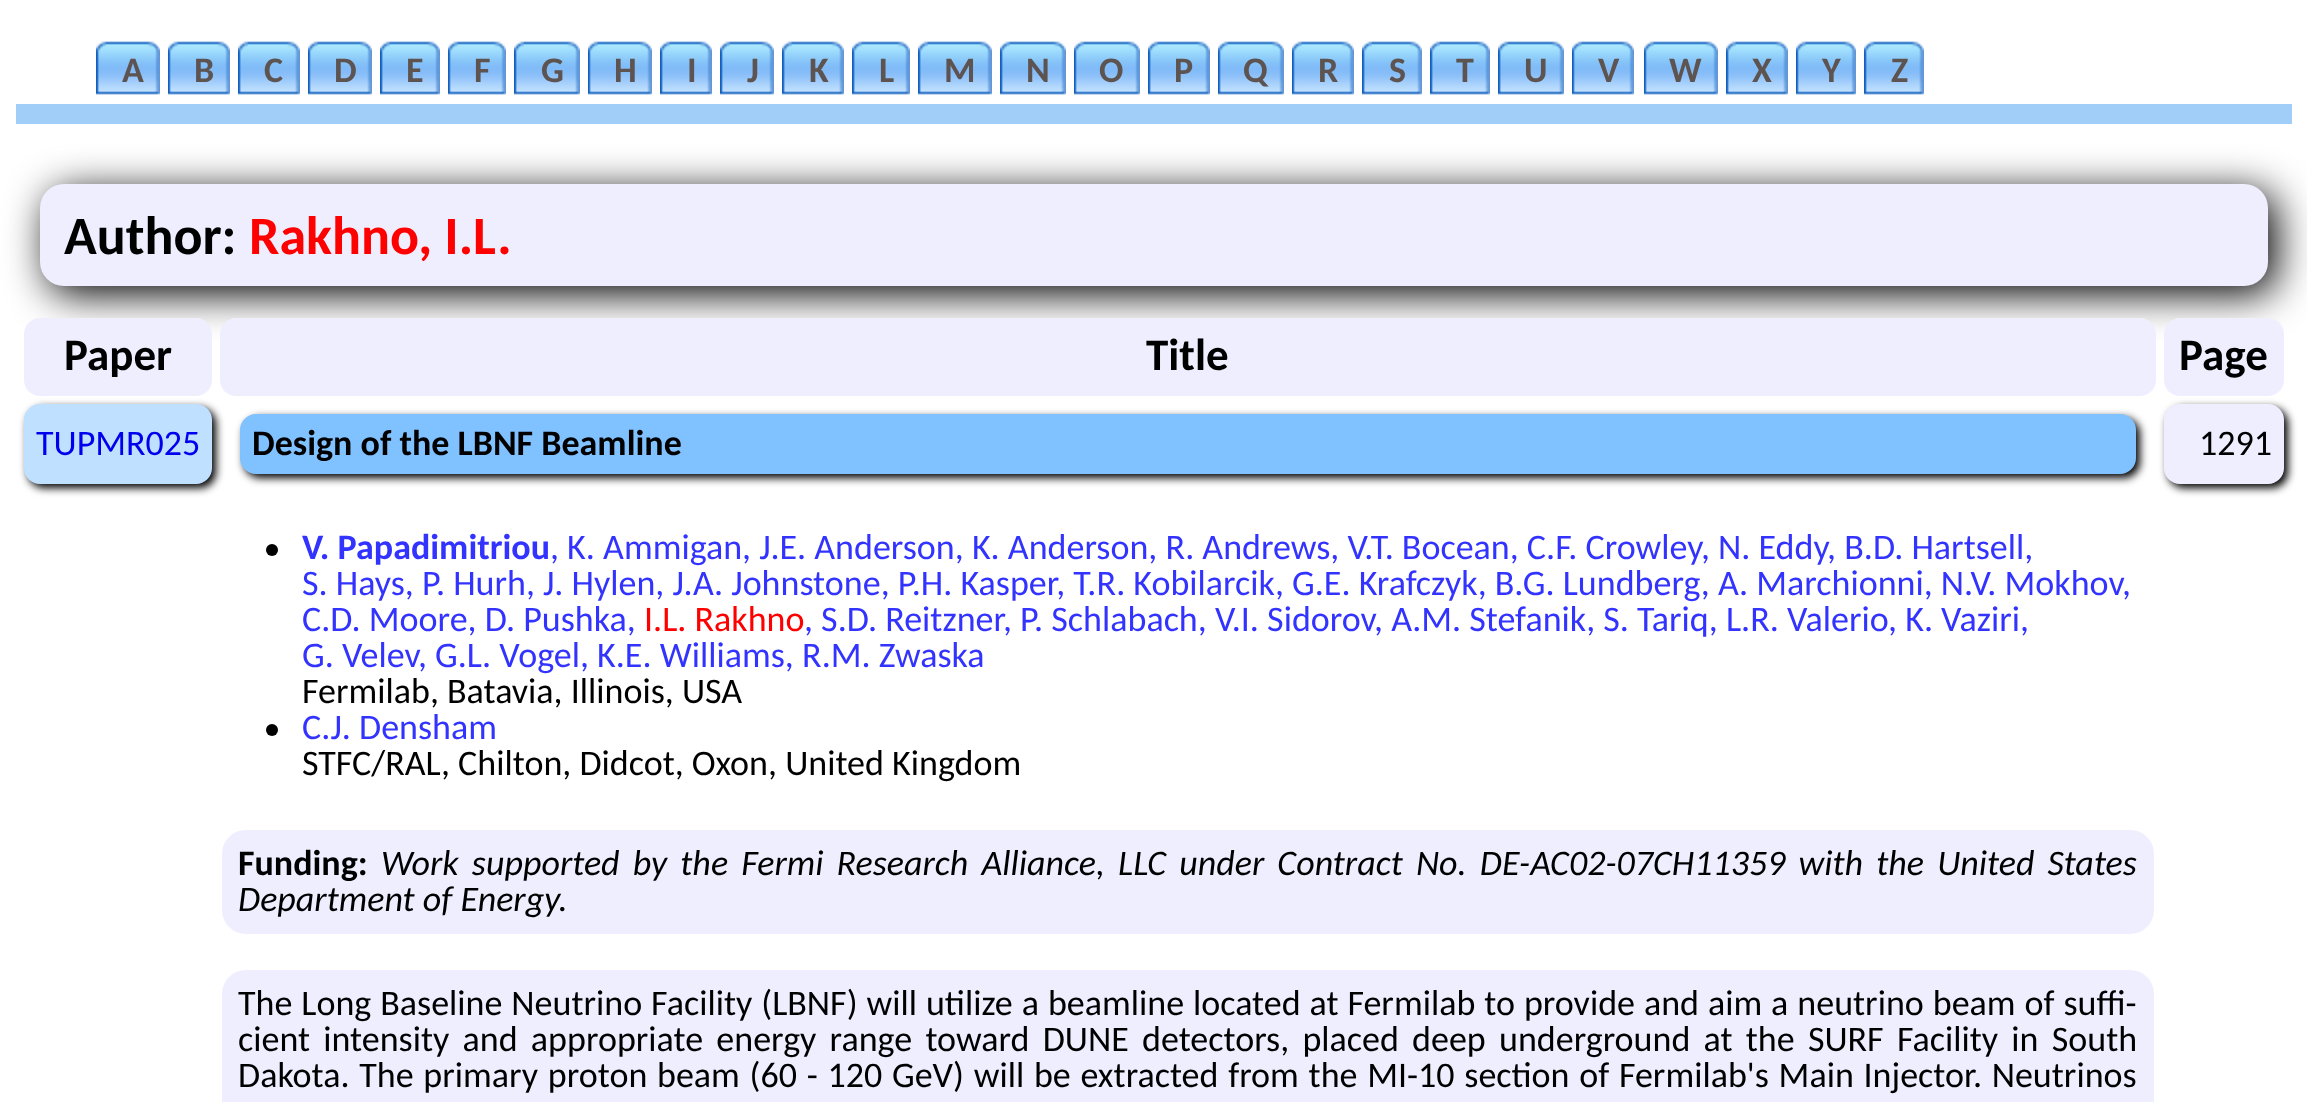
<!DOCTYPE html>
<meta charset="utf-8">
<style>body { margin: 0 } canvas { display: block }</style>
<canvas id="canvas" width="2307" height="1102"></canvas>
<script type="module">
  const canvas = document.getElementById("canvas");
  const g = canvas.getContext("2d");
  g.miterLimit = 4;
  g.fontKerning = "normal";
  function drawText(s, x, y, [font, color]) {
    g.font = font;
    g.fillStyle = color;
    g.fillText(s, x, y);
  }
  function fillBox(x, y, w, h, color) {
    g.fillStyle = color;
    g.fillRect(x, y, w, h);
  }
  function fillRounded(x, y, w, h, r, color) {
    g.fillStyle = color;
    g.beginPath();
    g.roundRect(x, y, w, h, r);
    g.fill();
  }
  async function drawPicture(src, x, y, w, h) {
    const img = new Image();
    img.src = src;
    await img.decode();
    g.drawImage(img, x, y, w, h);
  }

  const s1 = ["bold 36px Carlito", "#5D5350"];
  const s2 = ["bold 54px Carlito", "#000000"];
  const s3 = ["bold 54px Carlito", "#FF0000"];
  const s4 = ["bold 45px Carlito", "#000000"];
  const s5 = ["36px Carlito", "#0000EE"];
  const s6 = ["bold 36px Carlito", "#000000"];
  const s7 = ["36px Carlito", "#000000"];
  const s8 = ["bold 36px Carlito", "#3333FF"];
  const s9 = ["36px Carlito", "#3333FF"];
  const s10 = ["36px Carlito", "#FF0000"];
  const s11 = ["italic 36px Carlito", "#000000"];

  fillBox(0, 0, 2307, 1102, "#FFFFFF");
  fillBox(16, 104, 2276, 20, "#A0CEF8");
  await drawPicture("pic1.png", 96, 41, 10, 54);
  await drawPicture("pic2.png", 106, 41, 54, 54);
  await drawPicture("pic3.png", 168, 41, 10, 54);
  await drawPicture("pic4.png", 178, 41, 52, 54);
  await drawPicture("pic5.png", 238, 41, 10, 54);
  await drawPicture("pic6.png", 248, 41, 52, 54);
  await drawPicture("pic3.png", 308, 41, 10, 54);
  await drawPicture("pic7.png", 318, 41, 54, 54);
  await drawPicture("pic1.png", 380, 41, 10, 54);
  await drawPicture("pic8.png", 390, 41, 50, 54);
  await drawPicture("pic3.png", 448, 41, 10, 54);
  await drawPicture("pic9.png", 458, 41, 48, 54);
  await drawPicture("pic5.png", 514, 41, 10, 54);
  await drawPicture("pic10.png", 524, 41, 56, 54);
  await drawPicture("pic3.png", 588, 41, 10, 54);
  await drawPicture("pic7.png", 598, 41, 54, 54);
  await drawPicture("pic1.png", 660, 41, 10, 54);
  await drawPicture("pic11.png", 670, 41, 42, 54);
  await drawPicture("pic1.png", 720, 41, 10, 54);
  await drawPicture("pic12.png", 730, 41, 44, 54);
  await drawPicture("pic1.png", 782, 41, 10, 54);
  await drawPicture("pic13.png", 792, 41, 52, 54);
  await drawPicture("pic1.png", 852, 41, 10, 54);
  await drawPicture("pic14.png", 862, 41, 48, 54);
  await drawPicture("pic1.png", 918, 41, 10, 54);
  await drawPicture("pic15.png", 928, 41, 64, 54);
  await drawPicture("pic1.png", 1000, 41, 10, 54);
  await drawPicture("pic16.png", 1010, 41, 56, 54);
  await drawPicture("pic3.png", 1074, 41, 10, 54);
  await drawPicture("pic17.png", 1084, 41, 56, 54);
  await drawPicture("pic1.png", 1148, 41, 10, 54);
  await drawPicture("pic18.png", 1158, 41, 52, 54);
  await drawPicture("pic3.png", 1218, 41, 10, 54);
  await drawPicture("pic19.png", 1228, 41, 56, 54);
  await drawPicture("pic3.png", 1292, 41, 10, 54);
  await drawPicture("pic20.png", 1302, 41, 52, 54);
  await drawPicture("pic5.png", 1362, 41, 10, 54);
  await drawPicture("pic21.png", 1372, 41, 50, 54);
  await drawPicture("pic1.png", 1430, 41, 10, 54);
  await drawPicture("pic22.png", 1440, 41, 50, 54);
  await drawPicture("pic1.png", 1498, 41, 10, 54);
  await drawPicture("pic23.png", 1508, 41, 56, 54);
  await drawPicture("pic24.png", 1572, 41, 10, 54);
  await drawPicture("pic25.png", 1582, 41, 52, 54);
  await drawPicture("pic3.png", 1644, 41, 10, 54);
  await drawPicture("pic26.png", 1654, 41, 64, 54);
  await drawPicture("pic1.png", 1726, 41, 10, 54);
  await drawPicture("pic27.png", 1736, 41, 52, 54);
  await drawPicture("pic3.png", 1796, 41, 10, 54);
  await drawPicture("pic28.png", 1806, 41, 50, 54);
  await drawPicture("pic1.png", 1864, 41, 10, 54);
  await drawPicture("pic29.png", 1874, 41, 50, 54);
  drawText("A", 122, 82, s1);
  drawText("B", 194, 82, s1);
  drawText("C", 264, 82, s1);
  drawText("D", 334, 82, s1);
  drawText("E", 406, 82, s1);
  drawText("F", 474, 82, s1);
  drawText("G", 541, 82, s1);
  drawText("H", 614, 82, s1);
  drawText("I", 687, 82, s1);
  drawText("J", 747, 82, s1);
  drawText("K", 809, 82, s1);
  drawText("L", 879, 82, s1);
  drawText("M", 944, 82, s1);
  drawText("N", 1026, 82, s1);
  drawText("O", 1099, 82, s1);
  drawText("P", 1174, 82, s1);
  drawText("Q", 1243, 82, s1);
  drawText("R", 1318, 82, s1);
  drawText("S", 1389, 82, s1);
  drawText("T", 1456, 82, s1);
  drawText("U", 1524, 82, s1);
  drawText("V", 1598, 82, s1);
  drawText("W", 1669, 82, s1);
  drawText("X", 1752, 82, s1);
  drawText("Y", 1822, 82, s1);
  drawText("Z", 1891, 82, s1);
  g.fillStyle = "#000000";
  g.filter = "blur(20px)";
  g.beginPath();
  g.roundRect(48, 192, 2228, 102, 24);
  g.fill();
  g.filter = "none";
  fillRounded(40, 184, 2228, 102, 24, "#EEEEFF");
  drawText("Author:", 64, 254, s2);
  drawText("Rakhno, I.L.", 249, 254, s3);
  fillRounded(24, 318, 188, 78, 16, "#EEEEFF");
  drawText("Paper", 64, 370, s4);
  fillRounded(220, 318, 1936, 78, 16, "#EEEEFF");
  drawText("Title", 1146, 370, s4);
  fillRounded(2164, 318, 120, 78, 16, "#EEEEFF");
  drawText("Page", 2179, 370, s4);
  g.filter = "blur(4px)";
  g.beginPath();
  g.roundRect(28, 408, 188, 80, 16);
  g.fill();
  g.filter = "none";
  fillRounded(24, 404, 188, 80, 16, "#C0E0FF");
  drawText("TUPMR025", 36, 455, s5);
  g.fillStyle = "#000000";
  g.filter = "blur(4px)";
  g.beginPath();
  g.roundRect(244, 418, 1896, 60, 16);
  g.fill();
  g.filter = "none";
  fillRounded(240, 414, 1896, 60, 16, "#80C1FF");
  drawText("Design of the LBNF Beamline", 252, 455, s6);
  g.filter = "blur(4px)";
  g.beginPath();
  g.roundRect(2168, 408, 120, 80, 16);
  g.fill();
  g.filter = "none";
  fillRounded(2164, 404, 120, 80, 16, "#EEEEFF");
  drawText("1291", 2199, 455, s7);
  g.beginPath();
  g.arc(272, 550, 6, 0, Math.PI * 2);
  g.fill();
  drawText("V. Papadimitriou", 302, 559, s8);
  drawText(", K. Ammigan, J.E. Anderson, K. Anderson, R. Andrews, V.T. Bocean, C.F. Crowley, N. Eddy, B.D. Hartsell,", 550, 559, s9);
  drawText("S. Hays, P. Hurh, J. Hylen, J.A. Johnstone, P.H. Kasper, T.R. Kobilarcik, G.E. Krafczyk, B.G. Lundberg, A. Marchionni, N.V. Mokhov,", 302, 595, s9);
  drawText("C.D. Moore, D. Pushka,", 302, 631, s9);
  drawText("I.L. Rakhno", 644, 631, s10);
  drawText(", S.D. Reitzner, P. Schlabach, V.I. Sidorov, A.M. Stefanik, S. Tariq, L.R. Valerio, K. Vaziri,", 804, 631, s9);
  drawText("G. Velev, G.L. Vogel, K.E. Williams, R.M. Zwaska", 302, 667, s9);
  drawText("Fermilab, Batavia, Illinois, USA", 302, 703, s7);
  g.beginPath();
  g.arc(272, 730, 6, 0, Math.PI * 2);
  g.fill();
  drawText("C.J. Densham", 302, 739, s9);
  drawText("STFC/RAL, Chilton, Didcot, Oxon, United Kingdom", 302, 775, s7);
  fillRounded(222, 830, 1932, 104, 24, "#EEEEFF");
  drawText("Funding:", 238, 875, s6);
  g.wordSpacing = "5px";
  drawText("Work supported by the Fermi Research Alliance, LLC under Contract No. DE-AC02-07CH11359 with the United States", 381, 875, s11);
  g.wordSpacing = "0px";
  drawText("Department of Energy.", 238, 911, s11);
  fillRounded(222, 970, 1932, 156, 24, "#EEEEFF");
  g.wordSpacing = "0.8px";
  drawText("The Long Baseline Neutrino Facility (LBNF) will utilize a beamline located at Fermilab to provide and aim a neutrino beam of suffi-", 238, 1015, s7);
  g.wordSpacing = "5.1px";
  drawText("cient intensity and appropriate energy range toward DUNE detectors, placed deep underground at the SURF Facility in South", 238, 1051, s7);
  g.wordSpacing = "1.6px";
  drawText("Dakota. The primary proton beam (60 - 120 GeV) will be extracted from the MI-10 section of Fermilab's Main Injector. Neutrinos", 238, 1087, s7);
</script>
